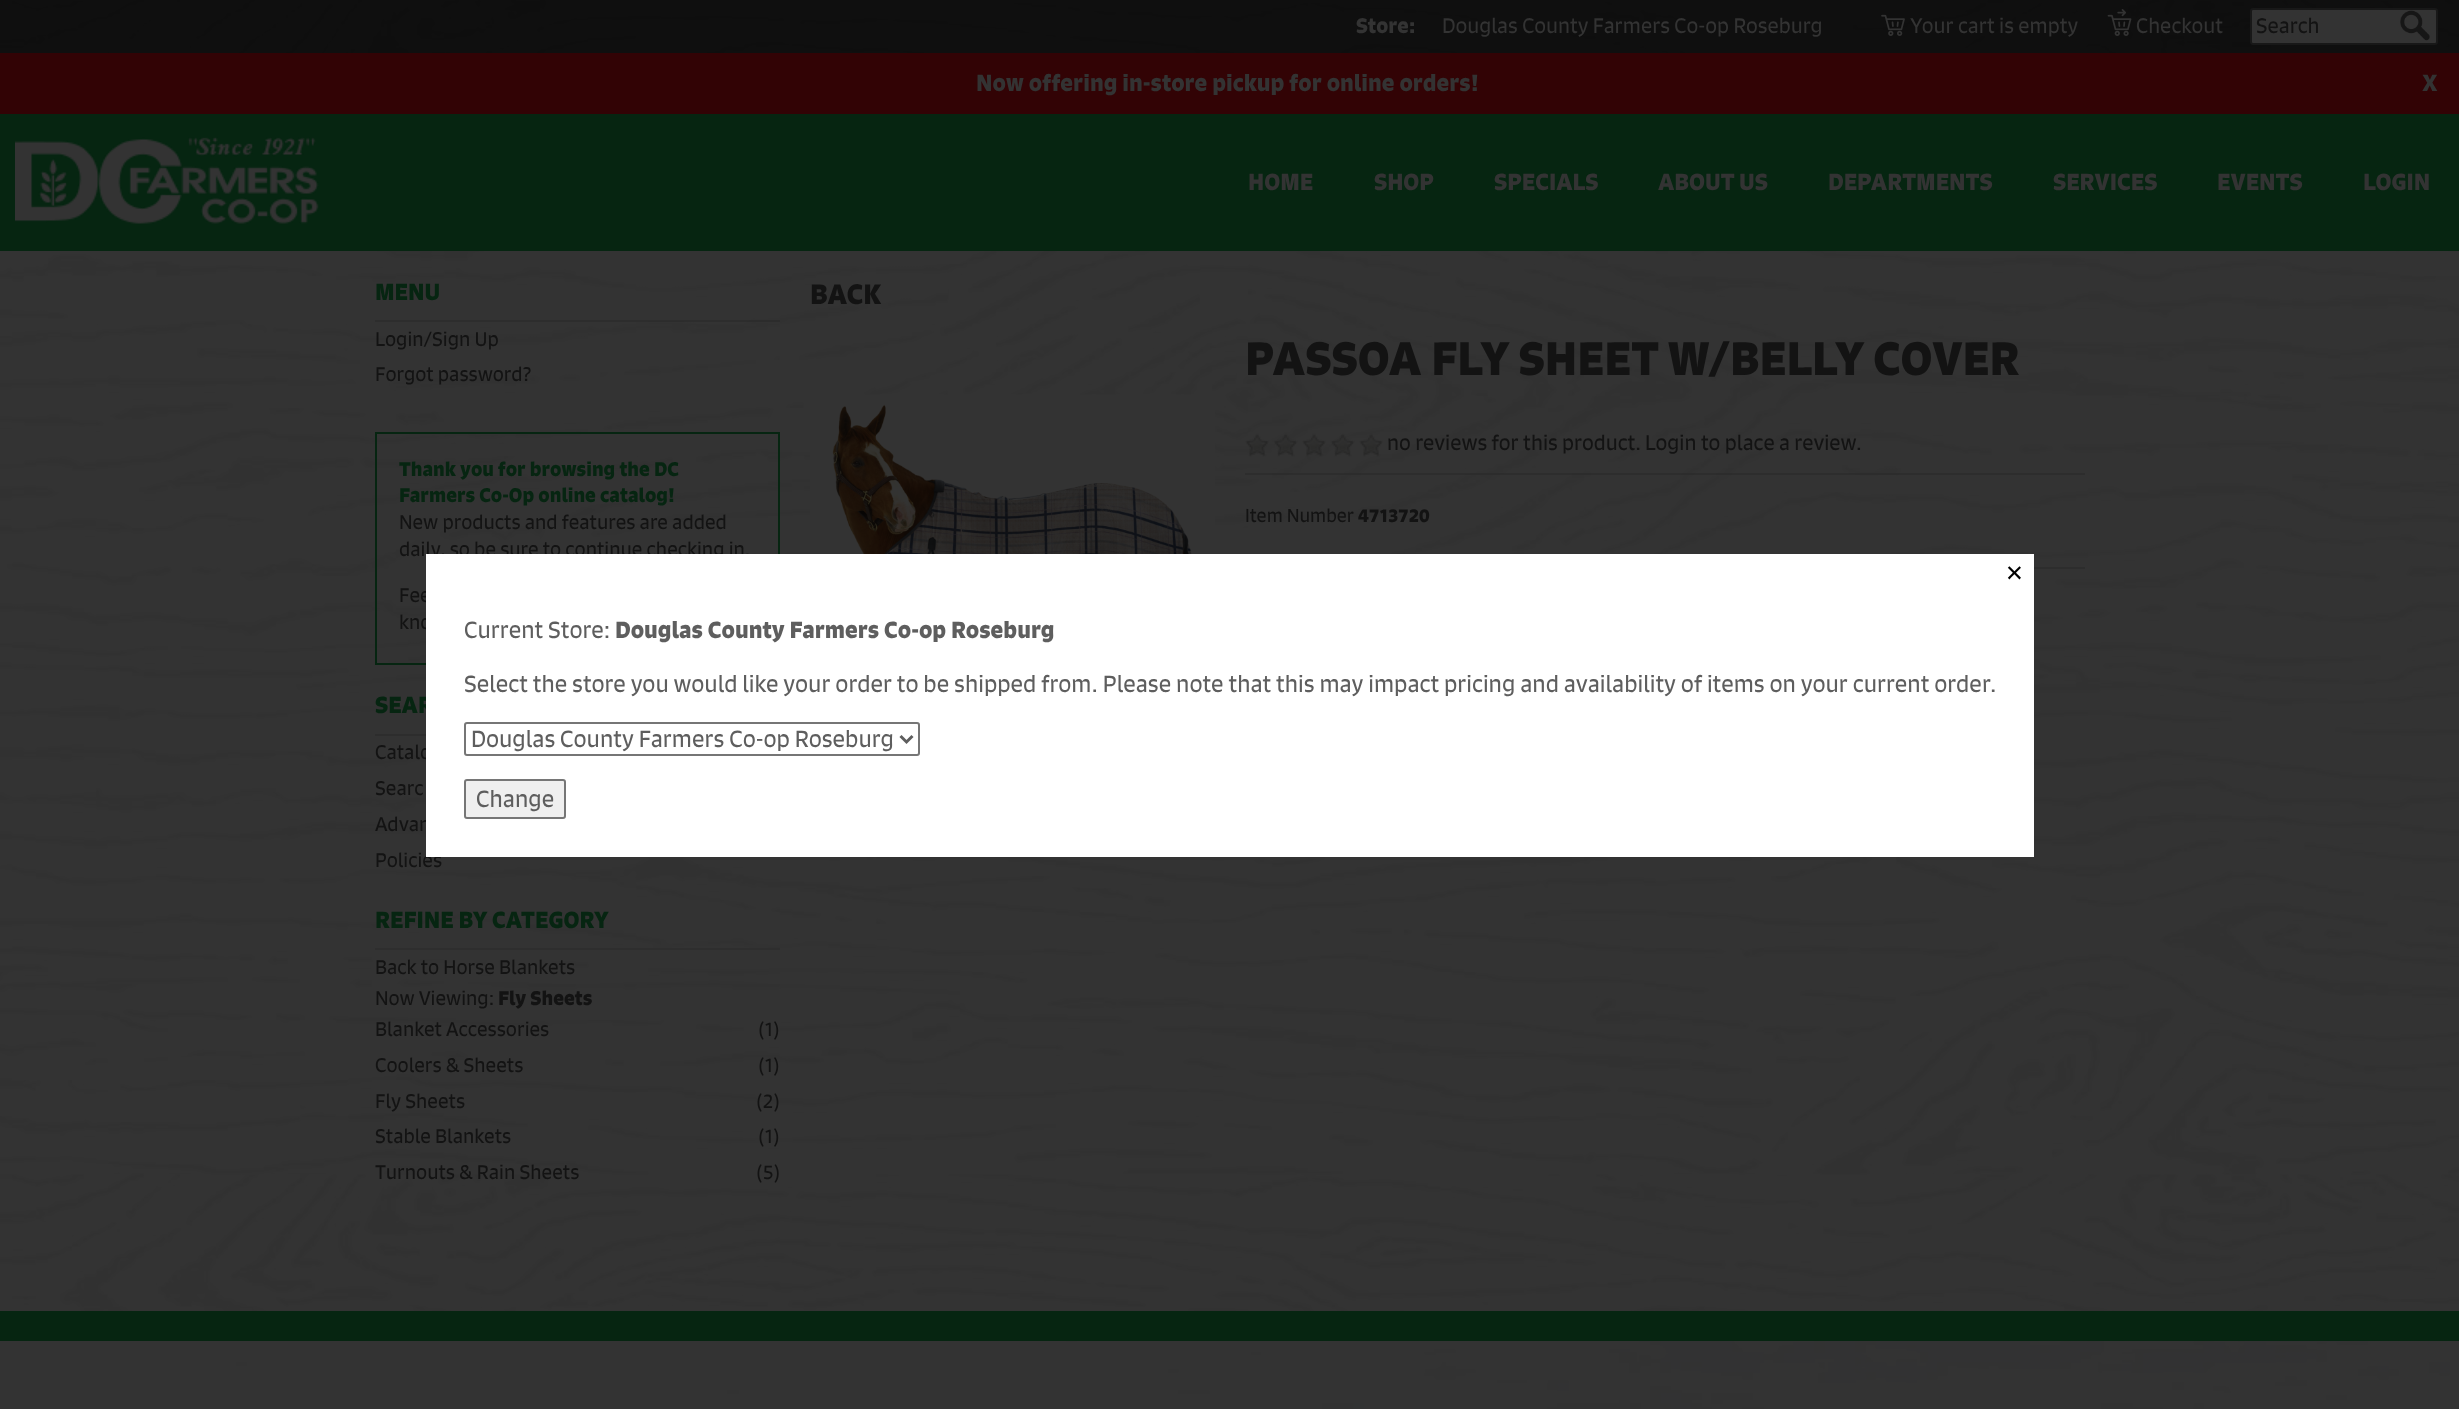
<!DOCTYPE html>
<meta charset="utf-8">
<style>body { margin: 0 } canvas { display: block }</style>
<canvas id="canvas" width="2459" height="1409"></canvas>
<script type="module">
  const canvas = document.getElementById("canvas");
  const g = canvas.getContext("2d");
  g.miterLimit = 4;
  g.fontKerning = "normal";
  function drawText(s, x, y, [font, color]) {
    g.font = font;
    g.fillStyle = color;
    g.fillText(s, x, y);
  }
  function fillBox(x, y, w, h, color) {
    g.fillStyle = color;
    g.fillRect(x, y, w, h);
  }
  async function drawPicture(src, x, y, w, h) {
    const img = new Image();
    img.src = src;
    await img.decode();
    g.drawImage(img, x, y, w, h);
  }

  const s1 = ["bold 20.25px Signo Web", "#333333"];
  const s2 = ["20.25px Signo Web", "#333333"];
  const s3 = ["20.25px Signo Web", "#131313"];
  const s4 = ["bold 22.5px Signo Web", "#333333"];
  const s5 = ["bold 22.5px Signo Web", "#062511"];
  const s6 = ["19.1px Signo Web", "#131313"];
  const s7 = ["bold 19.1px Signo Web", "#062511"];
  const s8 = ["bold 19.1px Signo Web", "#131313"];
  const s9 = ["bold 27px Signo Web", "#131313"];
  const s10 = ["bold 45px Signo Web", "#131313"];
  const s11 = ["18px Signo Web", "#131313"];
  const s12 = ["bold 18px Signo Web", "#131313"];
  const s13 = ["22.5px DejaVu Sans", "#000000"];
  const s14 = ["22.5px Signo Web", "#5E5E5E"];
  const s15 = ["bold 22.5px Signo Web", "#5E5E5E"];

  fillBox(0, 0, 2459, 1409, "#FFFFFF");
  await drawPicture("pic1.png", 0, 0, 2459, 1311);
  fillBox(0, 0, 2459, 53, "rgba(0, 0, 0, 0.7)");
  drawText("Store:", 1356, 33, s1);
  drawText("Douglas County Farmers Co-op Roseburg", 1442, 33, s2);
  await drawPicture("pic2.png", 1881, 14, 24, 22);
  drawText("Your cart is empty", 1910, 33, s2);
  await drawPicture("pic3.png", 2107, 9, 25, 27);
  drawText("Checkout", 2136, 33, s2);
  g.beginPath();
  g.roundRect(2251, 9, 186, 35, 2);
  g.fill();
  g.strokeStyle = "#181818";
  g.lineWidth = 2;
  g.stroke();
  drawText("Search", 2256, 33, s3);
  await drawPicture("pic4.png", 2400, 10, 30, 31);
  fillBox(0, 53, 2459, 61, "#320305");
  drawText("Now offering in-store pickup for online orders!", 976, 91, s4);
  drawText("X", 2422, 91, s4);
  fillBox(0, 114, 2459, 137, "#062511");
  await drawPicture("pic5.png", 15, 137, 304, 87);
  drawText("HOME", 1248, 190, s4);
  drawText("SHOP", 1374, 190, s4);
  drawText("SPECIALS", 1494, 190, s4);
  drawText("ABOUT US", 1658, 190, s4);
  drawText("DEPARTMENTS", 1828, 190, s4);
  drawText("SERVICES", 2053, 190, s4);
  drawText("EVENTS", 2217, 190, s4);
  drawText("LOGIN", 2363, 190, s4);
  fillBox(375, 320, 405, 2, "rgba(0, 0, 0, 0.1)");
  drawText("MENU", 375, 300, s5);
  drawText("Login/Sign Up", 375, 346, s6);
  drawText("Forgot password?", 375, 381, s6);
  g.strokeStyle = "#062511";
  g.strokeRect(376, 433, 403, 231);
  drawText("Thank you for browsing the DC", 399, 476, s7);
  drawText("Farmers Co-Op online catalog!", 399, 502, s7);
  drawText("New products and features are added", 399, 529, s6);
  drawText("daily, so be sure to continue checking in.", 399, 556, s6);
  drawText("Fee", 399, 602, s6);
  drawText("kno", 399, 629, s6);
  fillBox(375, 734, 51, 2, "rgba(0, 0, 0, 0.1)");
  drawText("SEAR", 375, 713, s5);
  drawText("Catalo", 375, 759, s6);
  drawText("Searc", 375, 795, s6);
  drawText("Advan", 375, 831, s6);
  drawText("Policies", 375, 867, s6);
  fillBox(375, 948, 405, 2, "#2E2E2E");
  drawText("REFINE BY CATEGORY", 375, 928, s5);
  drawText("Back to Horse Blankets", 375, 974, s6);
  drawText("Now Viewing:", 375, 1005, s6);
  drawText("Fly Sheets", 498, 1005, s8);
  drawText("Blanket Accessories", 375, 1036, s6);
  drawText("(1)", 758, 1036, s6);
  drawText("Coolers & Sheets", 375, 1072, s6);
  drawText("(1)", 758, 1072, s6);
  drawText("Fly Sheets", 375, 1108, s6);
  drawText("(2)", 756, 1108, s6);
  drawText("Stable Blankets", 375, 1143, s6);
  drawText("(1)", 758, 1143, s6);
  drawText("Turnouts & Rain Sheets", 375, 1179, s6);
  drawText("(5)", 756, 1179, s6);
  drawText("BACK", 810, 304, s9);
  await drawPicture("pic6.png", 810, 394, 405, 160);
  drawText("PASSOA FLY SHEET W/BELLY COVER", 1245, 375, s10);
  fillBox(1245, 473, 840, 2, "rgba(0, 0, 0, 0.1)");
  await drawPicture("pic7.png", 1245, 433, 24, 24);
  await drawPicture("pic8.png", 1274, 433, 24, 24);
  await drawPicture("pic9.png", 1302, 433, 24, 24);
  await drawPicture("pic10.png", 1330, 433, 25, 24);
  await drawPicture("pic11.png", 1359, 433, 24, 24);
  drawText("no reviews for this product.", 1387, 450, s3);
  drawText("Login to place a review.", 1645, 450, s3);
  drawText("Item Number", 1245, 522, s11);
  drawText("4713720", 1358, 522, s12);
  fillBox(2034, 567, 51, 2, "rgba(0, 0, 0, 0.1)");
  await drawPicture("pic12.png", 0, 1341, 2459, 68);
  fillBox(0, 1311, 2459, 30, "#062511");
  fillBox(426, 554, 1608, 303, "#FFFFFF");
  drawText("✕", 2005, 581, s13);
  drawText("Current Store:", 464, 638, s14);
  drawText("Douglas County Farmers Co-op Roseburg", 615, 638, s15);
  drawText("Select the store you would like your order to be shipped from. Please note that this may impact pricing and availability of items on your current order.", 464, 692, s14);
  g.beginPath();
  g.roundRect(465, 723, 454, 32, 2);
  g.strokeStyle = "#767676";
  g.stroke();
  g.beginPath();
  g.moveTo(900.5, 736);
  g.lineTo(906.5, 742);
  g.lineTo(912.5, 736);
  g.strokeStyle = "#5E5E5E";
  g.lineWidth = 3;
  g.stroke();
  drawText("Douglas County Farmers Co-op Roseburg", 471, 747, s14);
  g.fillStyle = "#EFEFEF";
  g.beginPath();
  g.roundRect(465, 780, 100, 38, 2);
  g.fill();
  g.strokeStyle = "#767676";
  g.lineWidth = 2;
  g.stroke();
  drawText("Change", 476, 807, s14);
</script>
